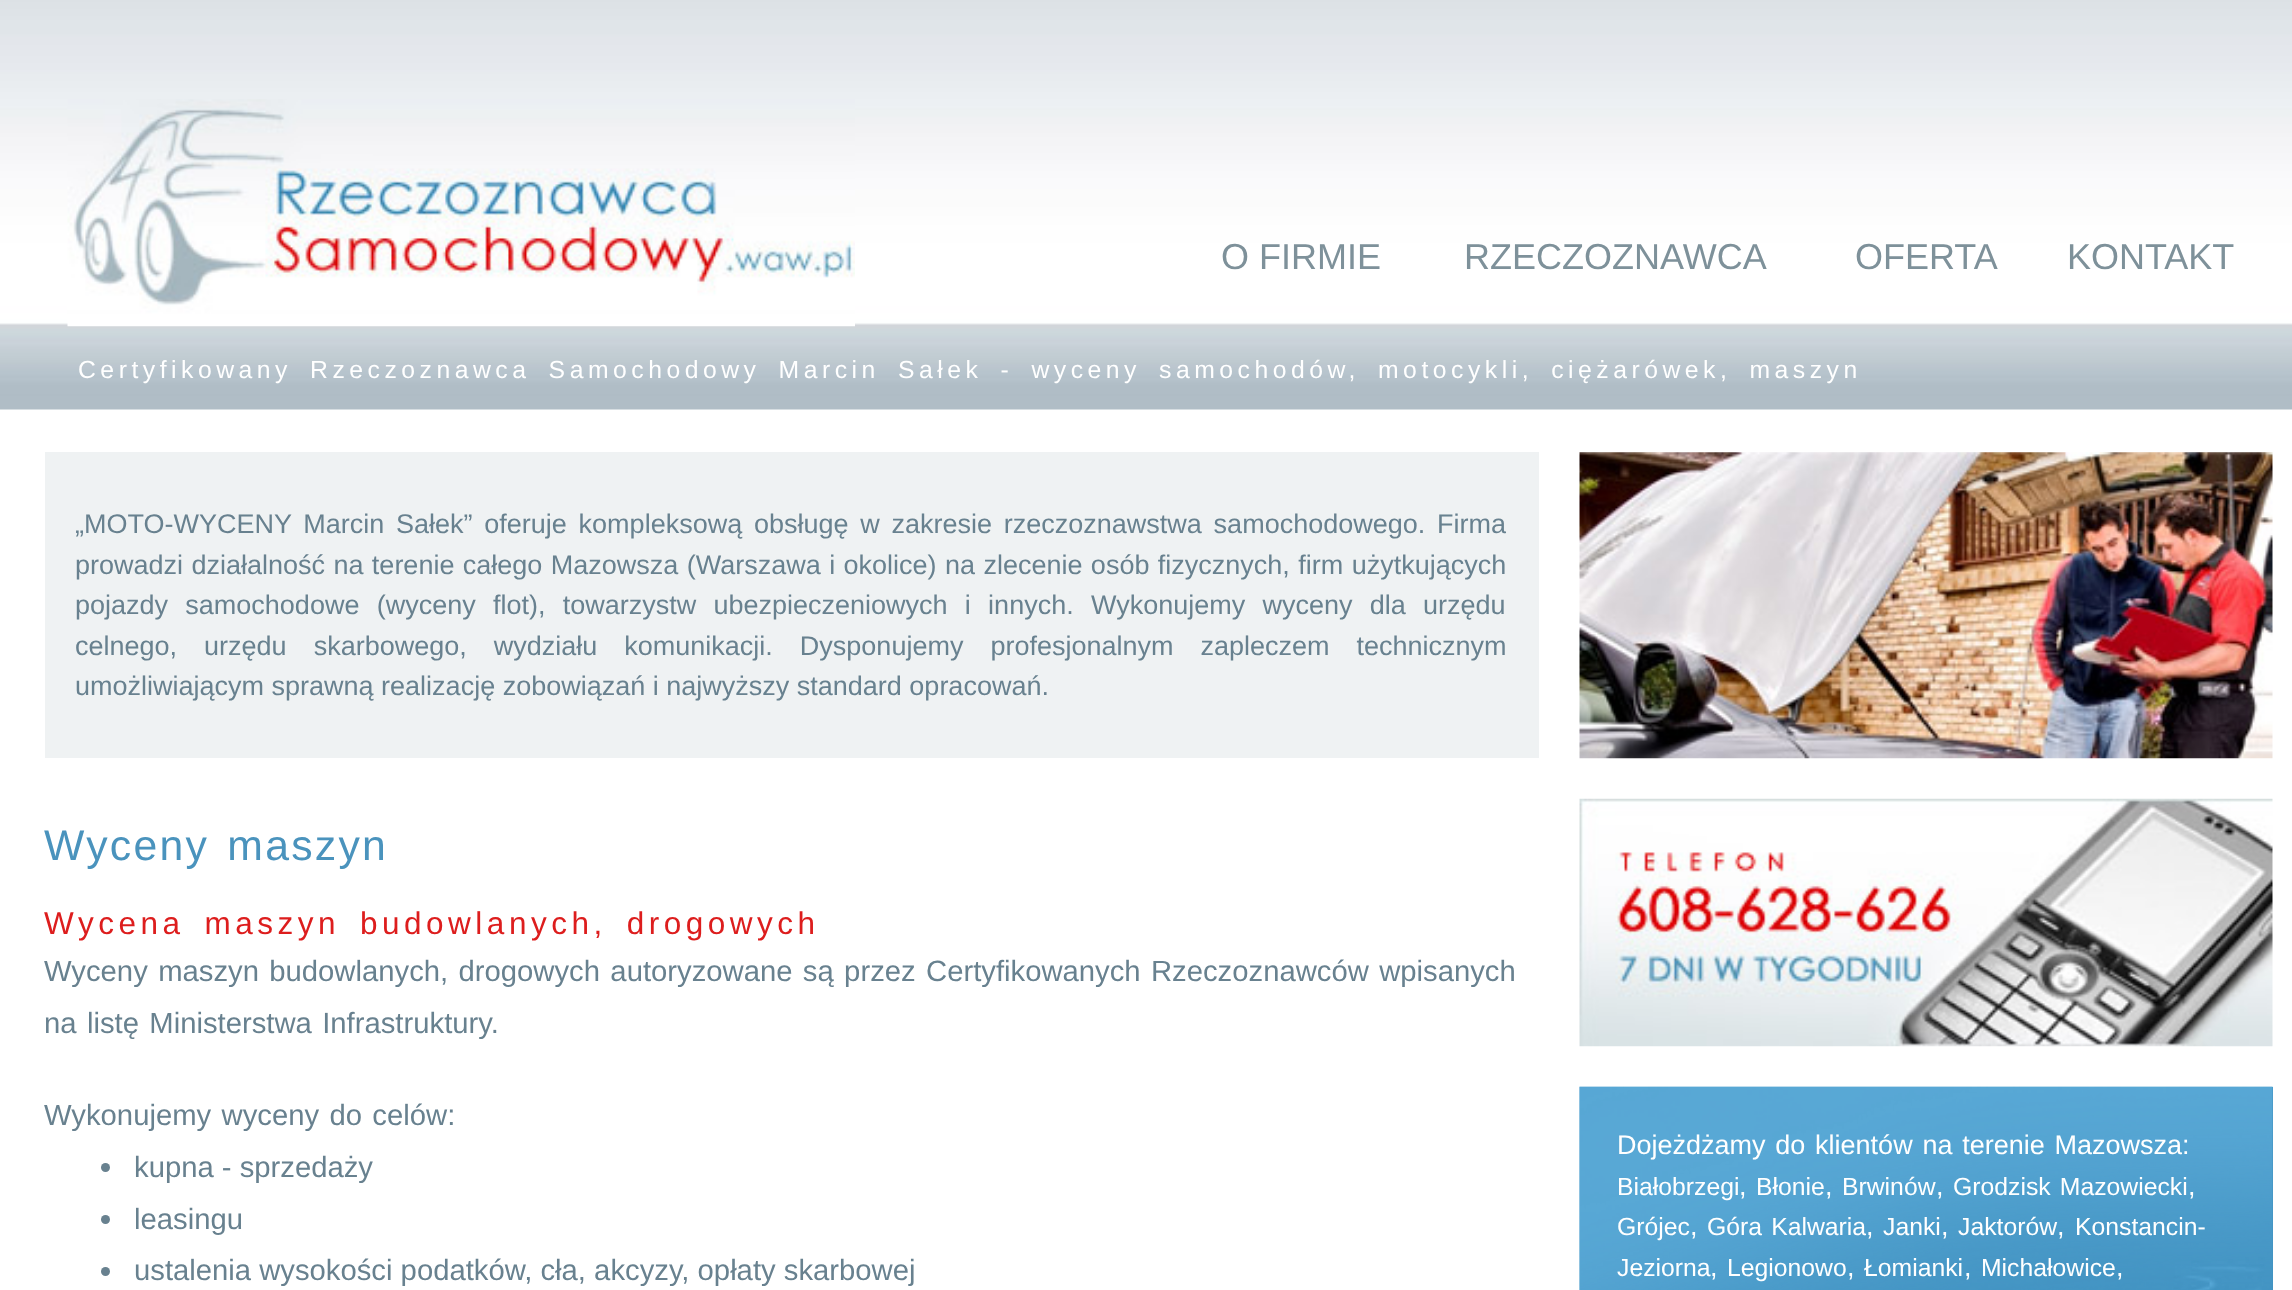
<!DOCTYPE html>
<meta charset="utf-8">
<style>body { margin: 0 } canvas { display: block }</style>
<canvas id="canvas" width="2292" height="1290"></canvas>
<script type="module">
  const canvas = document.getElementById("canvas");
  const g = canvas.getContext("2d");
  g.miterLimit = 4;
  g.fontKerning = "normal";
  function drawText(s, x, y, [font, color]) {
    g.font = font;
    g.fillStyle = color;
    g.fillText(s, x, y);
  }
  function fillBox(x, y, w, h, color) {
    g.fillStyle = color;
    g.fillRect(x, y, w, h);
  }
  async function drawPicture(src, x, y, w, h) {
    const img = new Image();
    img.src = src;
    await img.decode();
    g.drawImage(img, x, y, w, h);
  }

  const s1 = ["36px Liberation Sans", "#7E919A"];
  const s2 = ["24.75px Liberation Sans", "#FFFFFF"];
  const s3 = ["27px Liberation Sans", "#68818F"];
  const s4 = ["42.75px Liberation Sans", "#4A93BD"];
  const s5 = ["31.5px Liberation Sans", "#DD1D1D"];
  const s6 = ["29.25px Liberation Sans", "#68818F"];
  const s7 = ["27px Liberation Sans", "#FFFFFF"];

  fillBox(0, 0, 2292, 1290, "#FFFFFF");
  await drawPicture("pic1.png", 0, 0, 2292, 410);
  await drawPicture("pic2.png", 67, 99, 788, 228);
  drawText("O FIRMIE", 1221, 269, s1);
  drawText("RZECZOZNAWCA", 1464, 269, s1);
  drawText("OFERTA", 1855, 269, s1);
  drawText("KONTAKT", 2067, 269, s1);
  g.letterSpacing = "4.5px";
  g.wordSpacing = "6.75px";
  drawText("Certyfikowany Rzeczoznawca Samochodowy Marcin Sałek - wyceny samochodów, motocykli, ciężarówek, maszyn", 78, 378, s2);
  fillBox(45, 452, 1494, 306, "#EFF2F3");
  g.letterSpacing = "0px";
  g.wordSpacing = "4.25px";
  drawText("„MOTO-WYCENY Marcin Sałek” oferuje kompleksową obsługę w zakresie rzeczoznawstwa samochodowego. Firma", 75, 533, s3);
  g.wordSpacing = "0.9px";
  drawText("prowadzi działalność na terenie całego Mazowsza (Warszawa i okolice) na zlecenie osób fizycznych, firm użytkujących", 75, 574, s3);
  g.wordSpacing = "9.75px";
  drawText("pojazdy samochodowe (wyceny flot), towarzystw ubezpieczeniowych i innych. Wykonujemy wyceny dla urzędu", 75, 614, s3);
  g.wordSpacing = "19.5px";
  drawText("celnego, urzędu skarbowego, wydziału komunikacji. Dysponujemy profesjonalnym zapleczem technicznym", 75, 655, s3);
  g.wordSpacing = "0px";
  drawText("umożliwiającym sprawną realizację zobowiązań i najwyższy standard opracowań.", 75, 695, s3);
  g.letterSpacing = "2.25px";
  g.wordSpacing = "4px";
  drawText("Wyceny maszyn", 44, 860, s4);
  g.letterSpacing = "4.5px";
  g.wordSpacing = "6.75px";
  drawText("Wycena maszyn budowlanych, drogowych", 44, 934, s5);
  g.letterSpacing = "0px";
  g.wordSpacing = "2.25px";
  drawText("Wyceny maszyn budowlanych, drogowych autoryzowane są przez Certyfikowanych Rzeczoznawców wpisanych", 44, 981, s6);
  drawText("na listę Ministerstwa Infrastruktury.", 44, 1033, s6);
  drawText("Wykonujemy wyceny do celów:", 44, 1125, s6);
  g.beginPath();
  g.arc(105.5, 1167.5, 4.5, 0, Math.PI * 2);
  g.fill();
  g.wordSpacing = "0px";
  drawText("kupna - sprzedaży", 134, 1177, s6);
  g.beginPath();
  g.arc(105.5, 1219.5, 4.5, 0, Math.PI * 2);
  g.fill();
  drawText("leasingu", 134, 1229, s6);
  g.beginPath();
  g.arc(105.5, 1271.5, 4.5, 0, Math.PI * 2);
  g.fill();
  drawText("ustalenia wysokości podatków, cła, akcyzy, opłaty skarbowej", 134, 1280, s6);
  await drawPicture("pic3.png", 1579, 452, 694, 307);
  await drawPicture("pic4.png", 1579, 798, 694, 249);
  fillBox(2272, 1087, 1, 203, "#4192C1");
  await drawPicture("pic5.png", 1579, 1086, 694, 204);
  await drawPicture("pic6.png", 1579, 1086, 694, 204);
  g.wordSpacing = "2.25px";
  drawText("Dojeżdżamy do klientów na terenie Mazowsza:", 1617, 1154, s7);
  g.wordSpacing = "0px";
  drawText("Białobrzegi", 1617, 1195, s2);
  drawText(",", 1739, 1195, s7);
  drawText("Błonie", 1756, 1195, s2);
  drawText(",", 1825, 1195, s7);
  drawText("Brwinów", 1842, 1195, s2);
  drawText(",", 1936, 1195, s7);
  g.wordSpacing = "2.25px";
  drawText("Grodzisk Mazowiecki", 1953, 1195, s2);
  g.wordSpacing = "0px";
  drawText(",", 2188, 1195, s7);
  drawText("Grójec", 1617, 1235, s2);
  drawText(",", 1690, 1235, s7);
  g.wordSpacing = "2.25px";
  drawText("Góra Kalwaria", 1707, 1235, s2);
  g.wordSpacing = "0px";
  drawText(",", 1866, 1235, s7);
  drawText("Janki", 1883, 1235, s2);
  drawText(",", 1941, 1235, s7);
  drawText("Jaktorów", 1958, 1235, s2);
  drawText(",", 2057, 1235, s7);
  drawText("Konstancin-", 2075, 1235, s2);
  drawText("Jeziorna", 1617, 1276, s2);
  drawText(",", 1710, 1276, s7);
  drawText("Legionowo", 1727, 1276, s2);
  drawText(",", 1847, 1276, s7);
  drawText("Łomianki", 1864, 1276, s2);
  drawText(",", 1964, 1276, s7);
  drawText("Michałowice", 1981, 1276, s2);
  drawText(",", 2116, 1276, s7);
</script>
